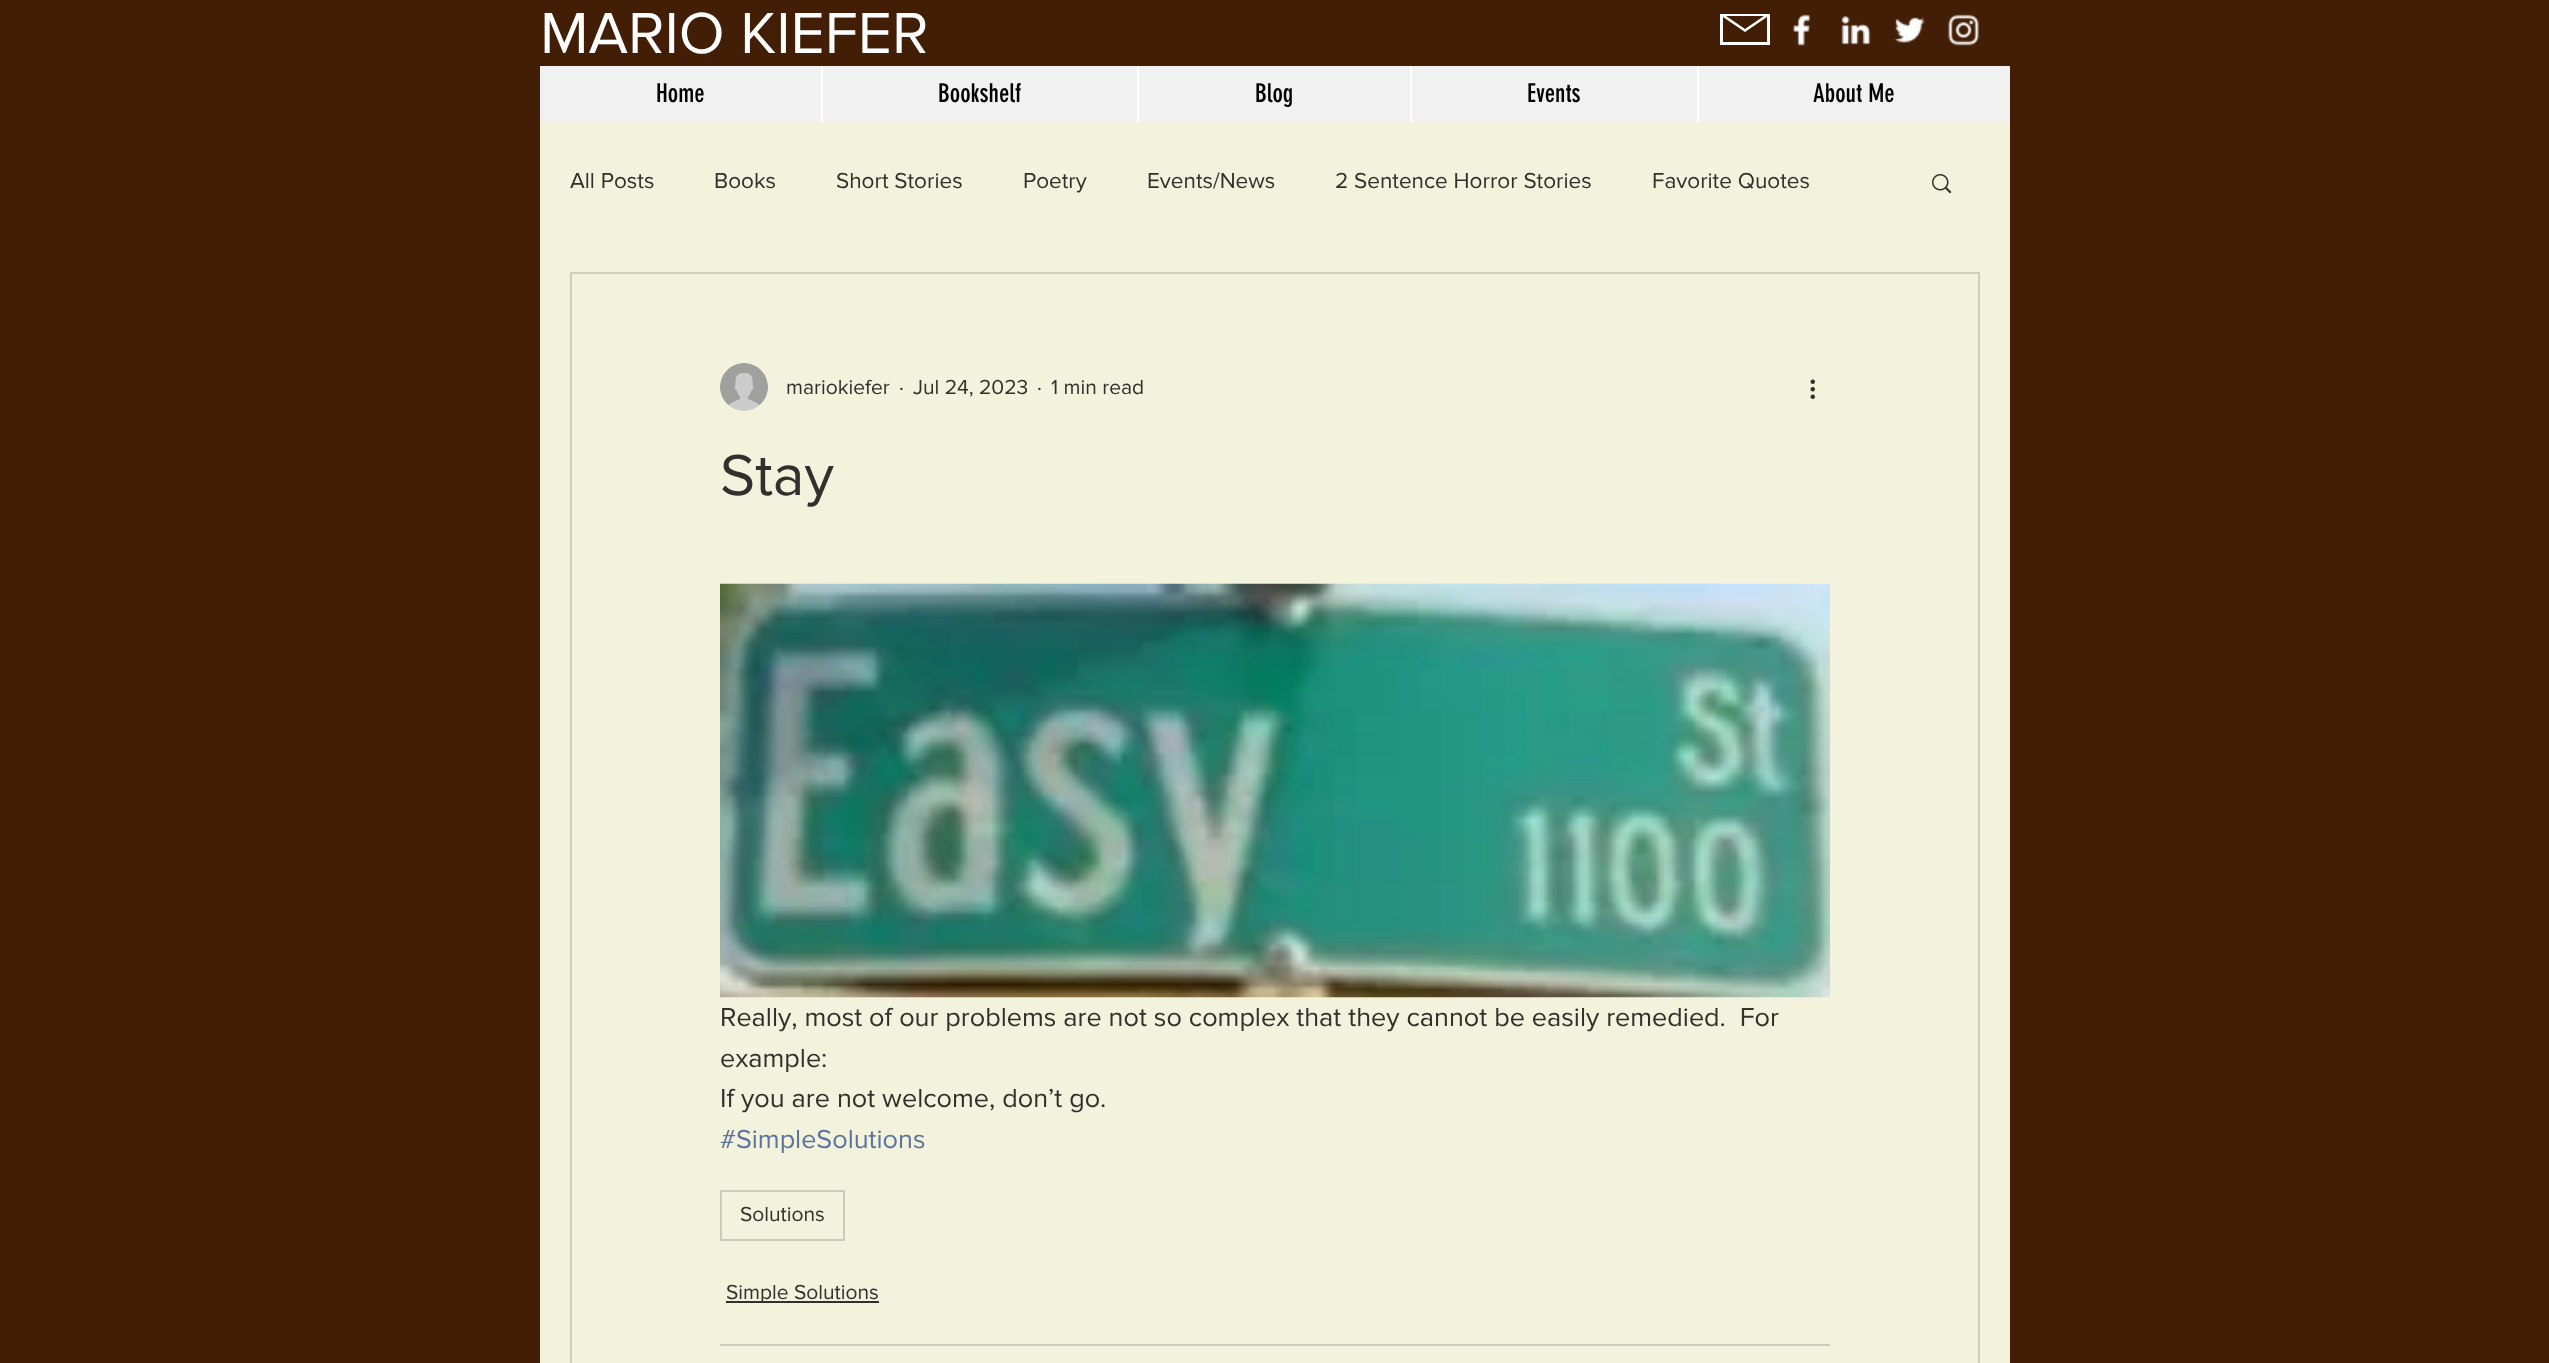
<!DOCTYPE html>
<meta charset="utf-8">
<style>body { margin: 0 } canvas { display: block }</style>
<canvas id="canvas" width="2549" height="1363"></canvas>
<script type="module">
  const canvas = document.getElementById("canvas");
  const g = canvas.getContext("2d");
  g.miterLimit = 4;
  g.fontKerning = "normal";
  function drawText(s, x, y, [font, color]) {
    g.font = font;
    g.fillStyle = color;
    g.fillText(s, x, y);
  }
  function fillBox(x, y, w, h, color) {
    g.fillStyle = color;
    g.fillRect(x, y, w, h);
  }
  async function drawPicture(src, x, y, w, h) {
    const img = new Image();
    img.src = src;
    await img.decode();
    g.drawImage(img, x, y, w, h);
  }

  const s1 = ["60px 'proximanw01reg'", "#FFFFFF"];
  const s2 = ["25.5px 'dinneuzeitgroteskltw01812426'", "#000000"];
  const s3 = ["22.5px 'proximanw01reg'", "#31302C"];
  const s4 = ["21px 'proximanw01reg'", "#31302C"];
  const s5 = ["60px 'proximanw01reg'", "#31302C"];
  const s6 = ["27px 'proximanw01reg'", "#31302C"];
  const s7 = ["27px 'proximanw01reg'", "#5C739D"];

  fillBox(0, 0, 2549, 1363, "#421E06");
  drawText("MARIO KIEFER", 540, 53, s1);
  g.beginPath();
  g.moveTo(1720, 14);
  g.lineTo(1720, 45);
  g.lineTo(1770, 45);
  g.lineTo(1770, 14);
  g.closePath();
  g.moveTo(1764, 16);
  g.lineTo(1745, 29);
  g.lineTo(1726, 16);
  g.closePath();
  g.moveTo(1723, 42);
  g.lineTo(1723, 17);
  g.lineTo(1745, 32);
  g.lineTo(1767, 17);
  g.lineTo(1767, 42);
  g.closePath();
  g.fill();
  await drawPicture("pic1.png", 1792, 14, 19, 32);
  await drawPicture("pic2.png", 1841, 16, 30, 29);
  await drawPicture("pic3.png", 1894, 17, 31, 27);
  await drawPicture("pic4.png", 1948, 14, 31, 32);
  fillBox(540, 66, 1470, 56, "#F1F1F1");
  drawText("Home", 656, 102, s2);
  fillBox(821, 66, 2, 56, "#FFFFFF");
  drawText("Bookshelf", 938, 102, s2);
  fillBox(1137, 66, 2, 56, "#FFFFFF");
  drawText("Blog", 1255, 102, s2);
  fillBox(1410, 66, 2, 56, "#FFFFFF");
  drawText("Events", 1527, 102, s2);
  fillBox(1697, 66, 2, 56, "#FFFFFF");
  drawText("About Me", 1813, 102, s2);
  fillBox(540, 122, 1470, 1241, "#F3F2DC");
  drawText("All Posts", 570, 188, s3);
  drawText("Books", 714, 188, s3);
  drawText("Short Stories", 836, 188, s3);
  drawText("Poetry", 1023, 188, s3);
  drawText("Events/News", 1147, 188, s3);
  drawText("2 Sentence Horror Stories", 1335, 188, s3);
  drawText("Favorite Quotes", 1652, 188, s3);
  await drawPicture("pic5.png", 1932, 174, 20, 20);
  g.strokeStyle = "#CECEBB";
  g.lineWidth = 2;
  g.strokeRect(571, 273, 1408, 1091);
  await drawPicture("pic6.png", 720, 363, 48, 48);
  drawText("mariokiefer", 786, 394, s4);
  drawText("·", 899, 394, s4);
  drawText("Jul 24, 2023", 913, 394, s4);
  drawText("·", 1037, 394, s4);
  drawText("1 min read", 1051, 394, s4);
  await drawPicture("pic7.png", 1810, 379, 5, 20);
  drawText("Stay", 720, 495, s5);
  await drawPicture("pic8.png", 720, 583, 1110, 415);
  drawText("Really, most of our problems are not so complex that they cannot be easily remedied.  For", 720, 1026, s6);
  drawText("example:", 720, 1067, s6);
  drawText("If you are not welcome, don’t go.", 720, 1107, s6);
  drawText("#SimpleSolutions", 720, 1148, s7);
  g.strokeStyle = "#CCCBB9";
  g.strokeRect(721, 1191, 123, 49);
  drawText("Solutions", 740, 1221, s4);
  fillBox(726, 1301, 153, 2, "#31302C");
  drawText("Simple Solutions", 726, 1299, s4);
  fillBox(720, 1344, 1110, 2, "#CCCBB9");
</script>
